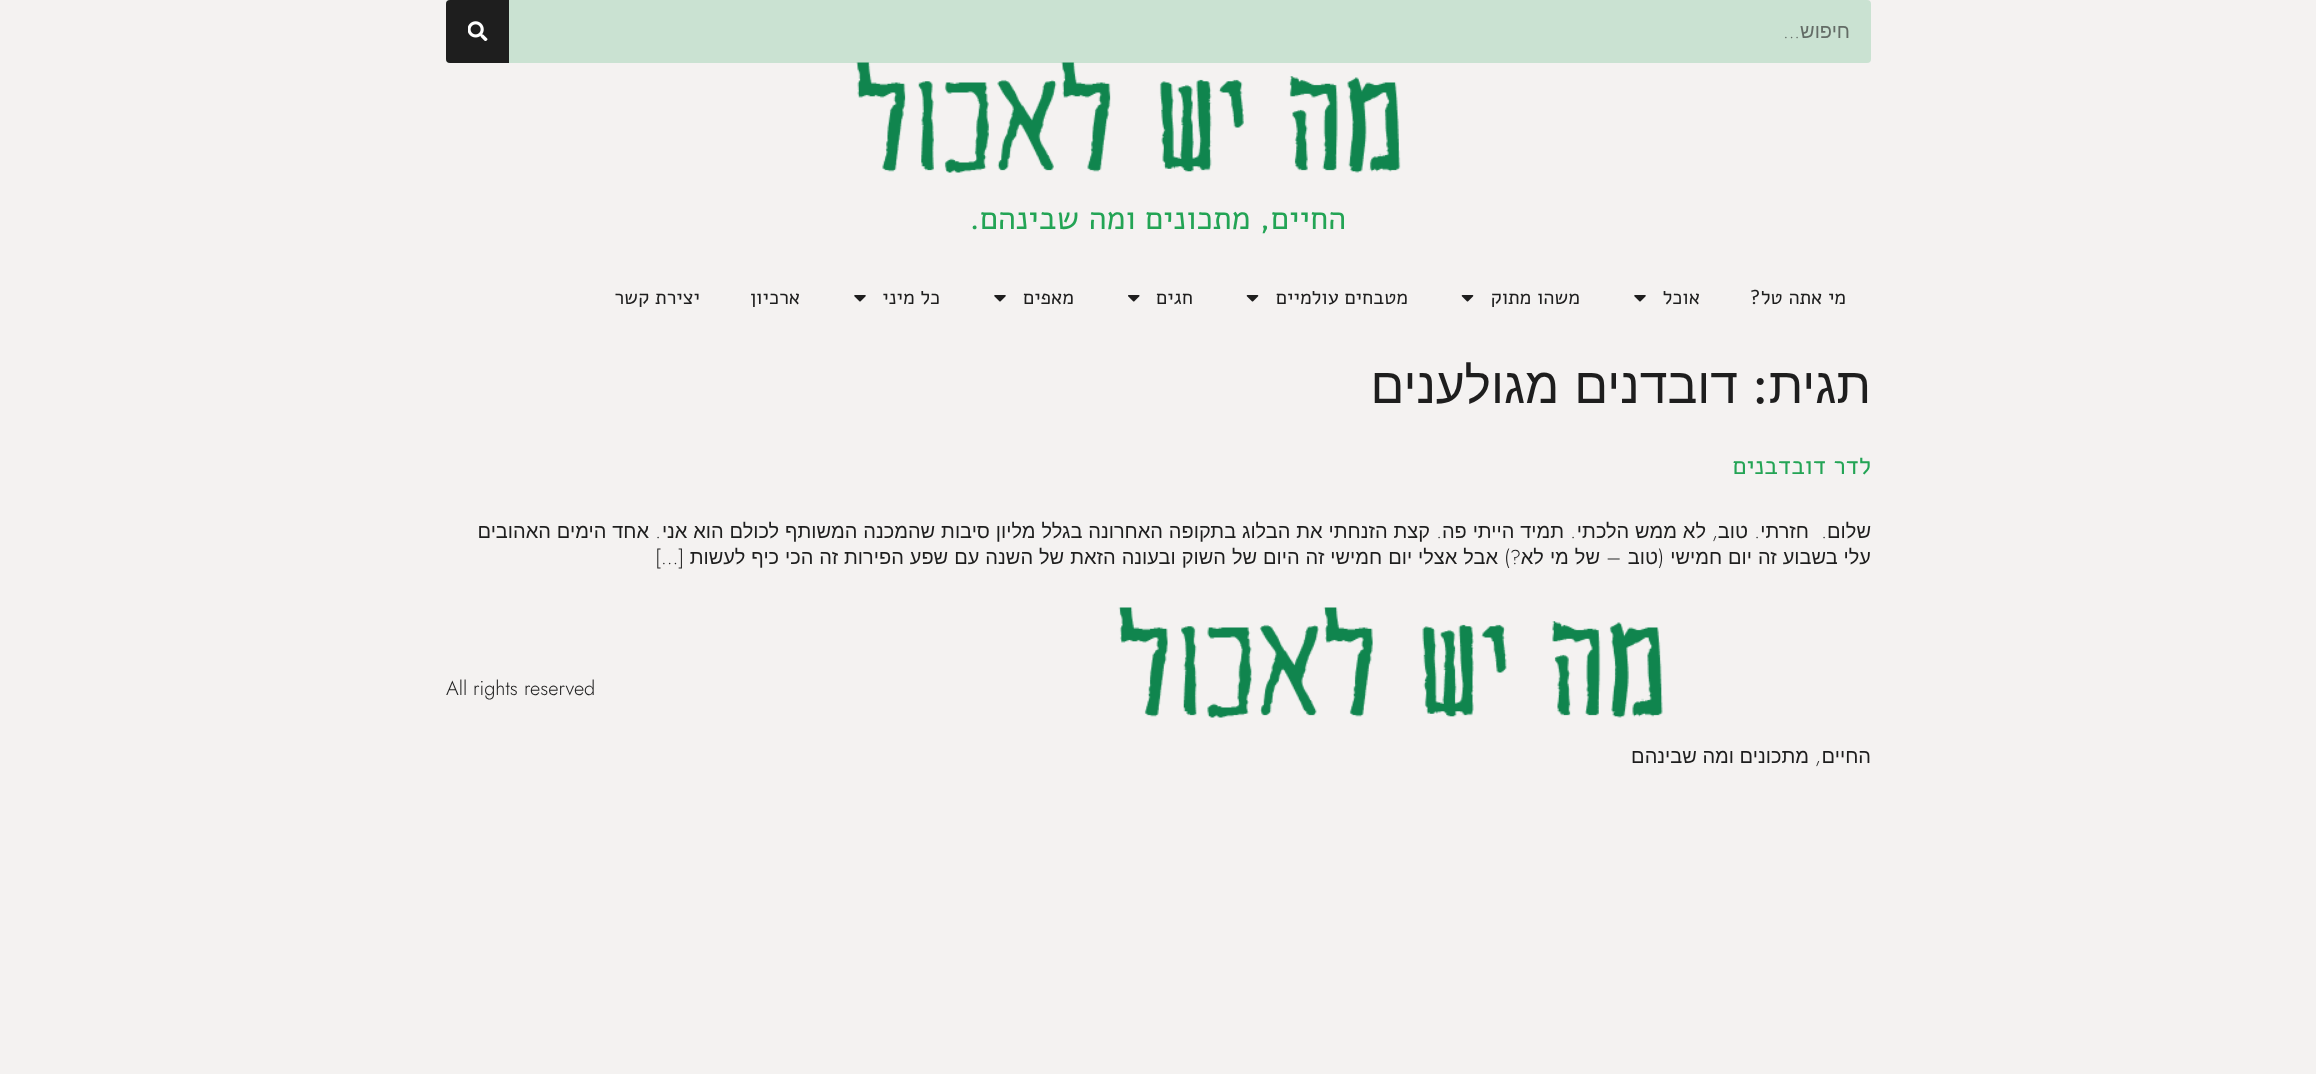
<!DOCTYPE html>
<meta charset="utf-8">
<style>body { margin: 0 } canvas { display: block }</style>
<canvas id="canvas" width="2316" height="1074"></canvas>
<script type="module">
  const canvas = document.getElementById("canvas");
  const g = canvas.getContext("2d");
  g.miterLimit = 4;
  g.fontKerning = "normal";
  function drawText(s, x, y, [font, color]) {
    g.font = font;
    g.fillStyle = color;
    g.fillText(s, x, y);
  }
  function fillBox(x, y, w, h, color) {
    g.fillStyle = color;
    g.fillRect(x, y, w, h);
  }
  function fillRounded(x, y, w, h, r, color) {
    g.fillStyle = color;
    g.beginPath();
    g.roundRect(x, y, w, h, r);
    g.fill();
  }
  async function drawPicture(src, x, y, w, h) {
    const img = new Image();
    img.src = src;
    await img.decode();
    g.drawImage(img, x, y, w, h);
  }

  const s1 = ["20px Liberation Sans", "#636C66"];
  const s2 = ["300 20px Jost", "#636C66"];
  const s3 = ["32.5px Alef", "#23A455"];
  const s4 = ["20px Alef", "#1E1E1E"];
  const s5 = ["50px Liberation Sans", "#1E1E1E"];
  const s6 = ["500 50px Jost", "#1E1E1E"];
  const s7 = ["25px Alef", "#23A455"];
  const s8 = ["20px Liberation Sans", "#1E1E1E"];
  const s9 = ["300 20px Jost", "#1E1E1E"];

  fillBox(0, 0, 2316, 1074, "#F4F2F1");
  fillRounded(446, 0, 1425, 63, 4, "#CAE2D2");
  g.direction = "rtl";
  drawText("חיפוש", 1850, 38, s1);
  drawText("...", 1800, 38, s2);
  g.fillStyle = "#1E1E1E";
  g.beginPath();
  g.roundRect(446, 0, 63, 63, [4, 0, 0, 4]);
  g.fill();
  await drawPicture("pic1.png", 468, 21, 20, 20);
  await drawPicture("pic2.png", 856, 62, 545, 111);
  drawText("החיים, מתכונים ומה שבינהם.", 1346, 229, s3);
  drawText("מי אתה טל?", 1846, 304, s4);
  drawText("אוכל", 1700, 304, s4);
  await drawPicture("pic3.png", 1634, 295, 12, 7);
  drawText("משהו מתוק", 1580, 304, s4);
  await drawPicture("pic4.png", 1461, 295, 13, 7);
  drawText("מטבחים עולמיים", 1408, 304, s4);
  await drawPicture("pic4.png", 1246, 295, 13, 7);
  drawText("חגים", 1193, 304, s4);
  await drawPicture("pic5.png", 1128, 295, 12, 7);
  drawText("מאפים", 1074, 304, s4);
  await drawPicture("pic3.png", 994, 295, 12, 7);
  drawText("כל מיני", 940, 304, s4);
  await drawPicture("pic3.png", 854, 295, 12, 7);
  drawText("ארכיון", 800, 304, s4);
  drawText("יצירת קשר", 700, 304, s4);
  drawText("תגית", 1871, 403, s5);
  drawText(":", 1768, 403, s6);
  g.wordSpacing = "1px";
  drawText("דובדנים מגולענים", 1738, 403, s5);
  g.wordSpacing = "0px";
  drawText("לדר דובדבנים", 1871, 474, s7);
  drawText("שלום", 1871, 538, s8);
  drawText(".", 1827, 538, s9);
  drawText("חזרתי", 1809, 538, s8);
  drawText(".", 1760, 538, s9);
  drawText("טוב", 1748, 538, s8);
  drawText(",", 1718, 538, s9);
  g.wordSpacing = "0.3px";
  drawText("לא ממש הלכתי", 1706, 538, s8);
  g.wordSpacing = "0px";
  drawText(".", 1576, 538, s9);
  g.wordSpacing = "0.3px";
  drawText("תמיד הייתי פה", 1564, 538, s8);
  g.wordSpacing = "0px";
  drawText(".", 1442, 538, s9);
  g.wordSpacing = "0.3px";
  drawText("קצת הזנחתי את הבלוג בתקופה האחרונה בגלל מליון סיבות שהמכנה המשותף לכולם הוא אני", 1430, 538, s8);
  g.wordSpacing = "0px";
  drawText(".", 661, 538, s9);
  g.wordSpacing = "0.3px";
  drawText("אחד הימים האהובים", 649, 538, s8);
  g.wordSpacing = "0.4px";
  drawText("עלי בשבוע זה יום חמישי", 1871, 564, s8);
  g.wordSpacing = "0px";
  drawText("(", 1664, 564, s9);
  drawText("טוב", 1658, 564, s8);
  drawText("–", 1621, 564, s9);
  g.wordSpacing = "0.4px";
  drawText("של מי לא", 1600, 564, s8);
  g.wordSpacing = "0px";
  drawText("?)", 1521, 564, s9);
  g.wordSpacing = "0.4px";
  drawText("אבל אצלי יום חמישי זה היום של השוק ובעונה הזאת של השנה עם שפע הפירות זה הכי כיף לעשות", 1498, 564, s8);
  g.wordSpacing = "0px";
  drawText("[…]", 684, 564, s9);
  g.direction = "ltr";
  drawText("All rights reserved", 446, 695, s9);
  await drawPicture("pic6.png", 1118, 607, 545, 111);
  g.direction = "rtl";
  drawText("החיים", 1871, 763, s8);
  drawText(",", 1821, 763, s9);
  drawText("מתכונים ומה שבינהם", 1809, 763, s8);
</script>
